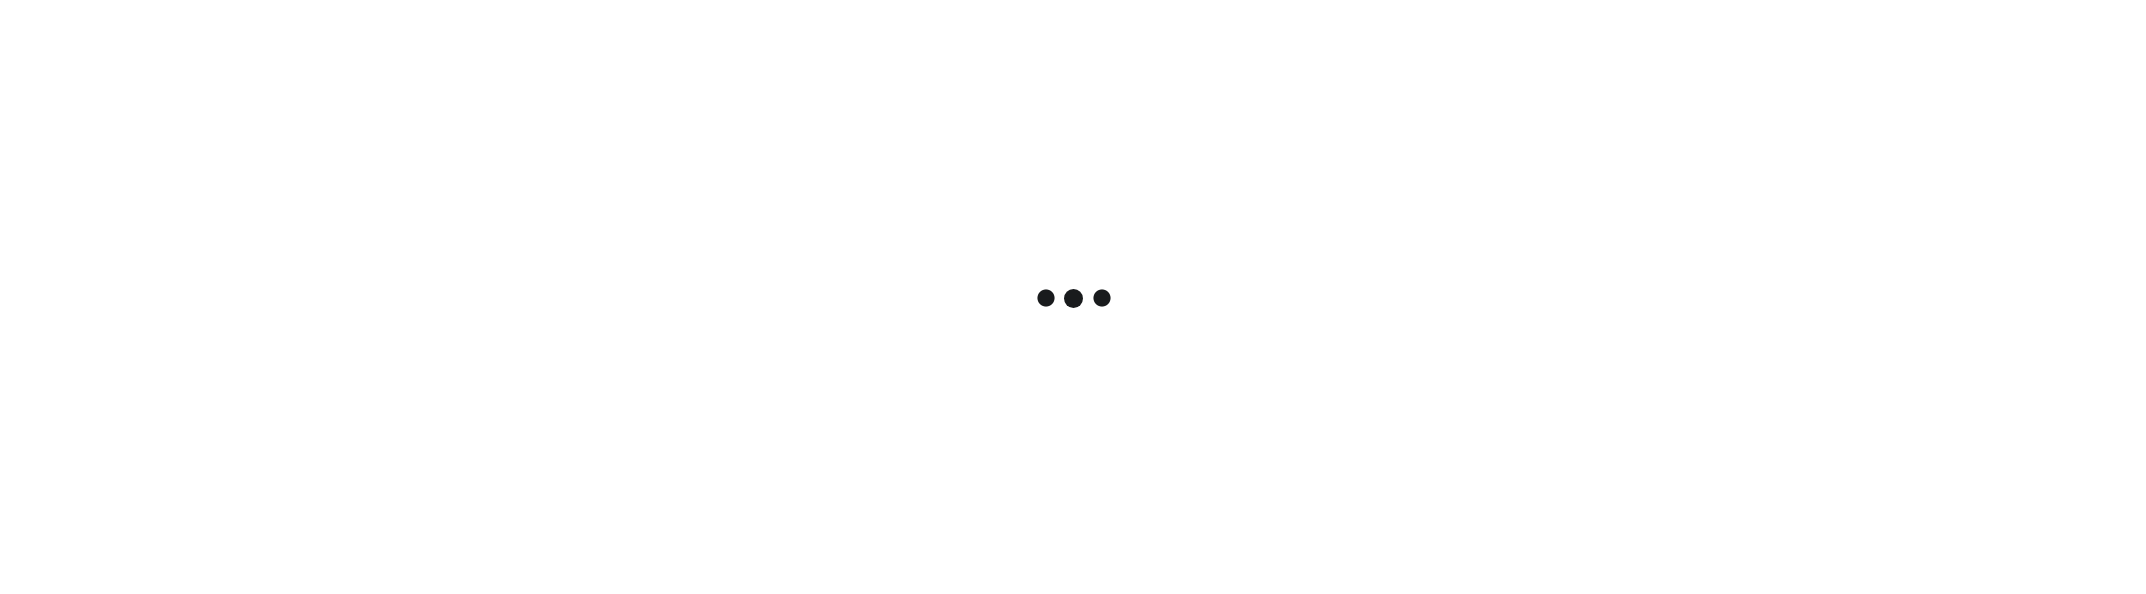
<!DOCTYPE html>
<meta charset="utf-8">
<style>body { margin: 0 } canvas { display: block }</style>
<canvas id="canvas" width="2146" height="594"></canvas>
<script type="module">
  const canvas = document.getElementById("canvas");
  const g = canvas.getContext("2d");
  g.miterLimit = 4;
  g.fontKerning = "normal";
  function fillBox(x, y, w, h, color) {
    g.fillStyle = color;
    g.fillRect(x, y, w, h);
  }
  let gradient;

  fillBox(0, 0, 2146, 594, "#FFFFFF");
  gradient = g.createRadialGradient(1102, 298, 0, 1102, 298, 9);
  gradient.addColorStop(0.9, "#191B1D");
  gradient.addColorStop(1, "#FFFFFF");
  g.fillStyle = gradient;
  g.fillRect(1093, 289, 18, 18);
  gradient = g.createRadialGradient(1046, 298, 0, 1046, 298, 9);
  gradient.addColorStop(0.9, "#191B1D");
  gradient.addColorStop(1, "#FFFFFF");
  g.fillStyle = gradient;
  g.fillRect(1037, 289, 18, 18);
  g.fillStyle = "#191B1D";
  g.beginPath();
  g.arc(1073.5, 298.5, 9.5, 0, Math.PI * 2);
  g.fill();
</script>
